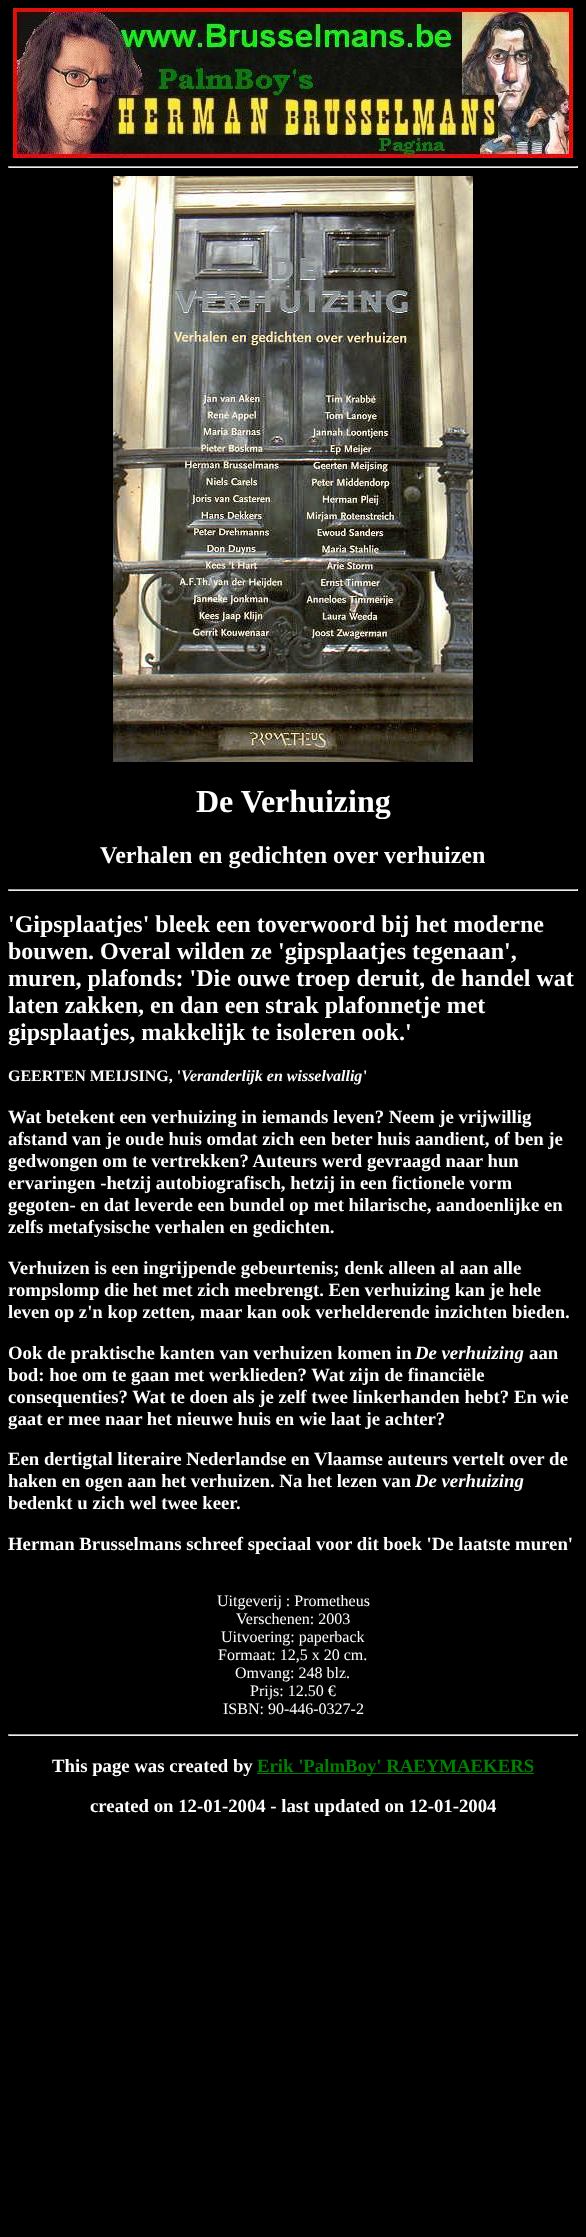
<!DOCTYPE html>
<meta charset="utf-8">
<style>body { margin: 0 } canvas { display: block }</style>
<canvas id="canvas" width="586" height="2237"></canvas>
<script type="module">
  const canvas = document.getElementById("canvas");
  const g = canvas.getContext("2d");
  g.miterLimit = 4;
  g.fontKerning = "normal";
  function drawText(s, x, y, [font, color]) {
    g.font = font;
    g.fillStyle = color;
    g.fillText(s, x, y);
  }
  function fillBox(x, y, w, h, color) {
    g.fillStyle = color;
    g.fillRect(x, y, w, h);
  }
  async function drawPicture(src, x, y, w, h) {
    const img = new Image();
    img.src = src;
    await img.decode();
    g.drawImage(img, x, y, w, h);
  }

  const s1 = ["bold 32px Liberation Serif", "#FFFFFF"];
  const s2 = ["bold 24px Liberation Serif", "#FFFFFF"];
  const s3 = ["bold 16px Liberation Serif", "#FFFFFF"];
  const s4 = ["italic bold 16px Liberation Serif", "#FFFFFF"];
  const s5 = ["bold 18.75px Liberation Serif", "#FFFFFF"];
  const s6 = ["italic bold 18.75px Liberation Serif", "#FFFFFF"];
  const s7 = ["16px Liberation Serif", "#FFFFFF"];
  const s8 = ["bold 18.75px Liberation Serif", "#008000"];

  fillBox(0, 0, 586, 2237, "#000000");
  await drawPicture("pic1.png", 13, 8, 560, 150);
  fillBox(8, 166, 570, 1, "#9F9F9F");
  fillBox(577, 166, 1, 2, "#EEEEEE");
  fillBox(8, 167, 570, 1, "#EEEEEE");
  fillBox(8, 166, 1, 2, "#9F9F9F");
  await drawPicture("pic2.png", 113, 176, 360, 586);
  drawText("De Verhuizing", 196, 812, s1);
  drawText("Verhalen en gedichten over verhuizen", 100, 863, s2);
  fillBox(8, 889, 570, 1, "#9F9F9F");
  fillBox(577, 889, 1, 2, "#EEEEEE");
  fillBox(8, 890, 570, 1, "#EEEEEE");
  fillBox(8, 889, 1, 2, "#9F9F9F");
  drawText("'Gipsplaatjes' bleek een toverwoord bij het moderne", 8, 932, s2);
  drawText("bouwen. Overal wilden ze 'gipsplaatjes tegenaan',", 8, 959, s2);
  drawText("muren, plafonds: 'Die ouwe troep deruit, de handel wat", 8, 986, s2);
  drawText("laten zakken, en dan een strak plafonnetje met", 8, 1013, s2);
  drawText("gipsplaatjes, makkelijk te isoleren ook.'", 8, 1040, s2);
  drawText("GEERTEN MEIJSING, '", 8, 1081, s3);
  drawText("Veranderlijk en wisselvallig", 181, 1081, s4);
  drawText("'", 363, 1081, s3);
  drawText("Wat betekent een verhuizing in iemands leven? Neem je vrijwillig", 8, 1123, s5);
  drawText("afstand van je oude huis omdat zich een beter huis aandient, of ben je", 8, 1145, s5);
  drawText("gedwongen om te vertrekken? Auteurs werd gevraagd naar hun", 8, 1167, s5);
  drawText("ervaringen -hetzij autobiografisch, hetzij in een fictionele vorm", 8, 1189, s5);
  drawText("gegoten- en dat leverde een bundel op met hilarische, aandoenlijke en", 8, 1211, s5);
  drawText("zelfs metafysische verhalen en gedichten.", 8, 1233, s5);
  drawText("Verhuizen is een ingrijpende gebeurtenis; denk alleen al aan alle", 8, 1274, s5);
  drawText("rompslomp die het met zich meebrengt. Een verhuizing kan je hele", 8, 1296, s5);
  drawText("leven op z'n kop zetten, maar kan ook verhelderende inzichten bieden.", 8, 1318, s5);
  drawText("Ook de praktische kanten van verhuizen komen in", 8, 1359, s5);
  drawText("De verhuizing", 415, 1359, s6);
  drawText("aan", 529, 1359, s5);
  drawText("bod: hoe om te gaan met werklieden? Wat zijn de financiële", 8, 1381, s5);
  drawText("consequenties? Wat te doen als je zelf twee linkerhanden hebt? En wie", 8, 1403, s5);
  drawText("gaat er mee naar het nieuwe huis en wie laat je achter?", 8, 1425, s5);
  drawText("Een dertigtal literaire Nederlandse en Vlaamse auteurs vertelt over de", 8, 1465, s5);
  drawText("haken en ogen aan het verhuizen. Na het lezen van", 8, 1487, s5);
  drawText("De verhuizing", 415, 1487, s6);
  drawText("bedenkt u zich wel twee keer.", 8, 1509, s5);
  drawText("Herman Brusselmans schreef speciaal voor dit boek 'De laatste muren'", 8, 1550, s5);
  drawText("Uitgeverij : Prometheus", 217, 1606, s7);
  drawText("Verschenen: 2003", 236, 1624, s7);
  drawText("Uitvoering: paperback", 221, 1642, s7);
  drawText("Formaat: 12,5 x 20 cm.", 218, 1660, s7);
  drawText("Omvang: 248 blz.", 235, 1678, s7);
  drawText("Prijs: 12.50 €", 250, 1696, s7);
  drawText("ISBN: 90-446-0327-2", 223, 1714, s7);
  fillBox(8, 1734, 570, 1, "#9F9F9F");
  fillBox(577, 1734, 1, 2, "#EEEEEE");
  fillBox(8, 1735, 570, 1, "#EEEEEE");
  fillBox(8, 1734, 1, 2, "#9F9F9F");
  drawText("This page was created by", 52, 1772, s5);
  fillBox(257, 1773, 277, 1, "#008000");
  drawText("Erik 'PalmBoy' RAEYMAEKERS", 257, 1772, s8);
  drawText("created on 12-01-2004 - last updated on 12-01-2004", 90, 1812, s5);
</script>
